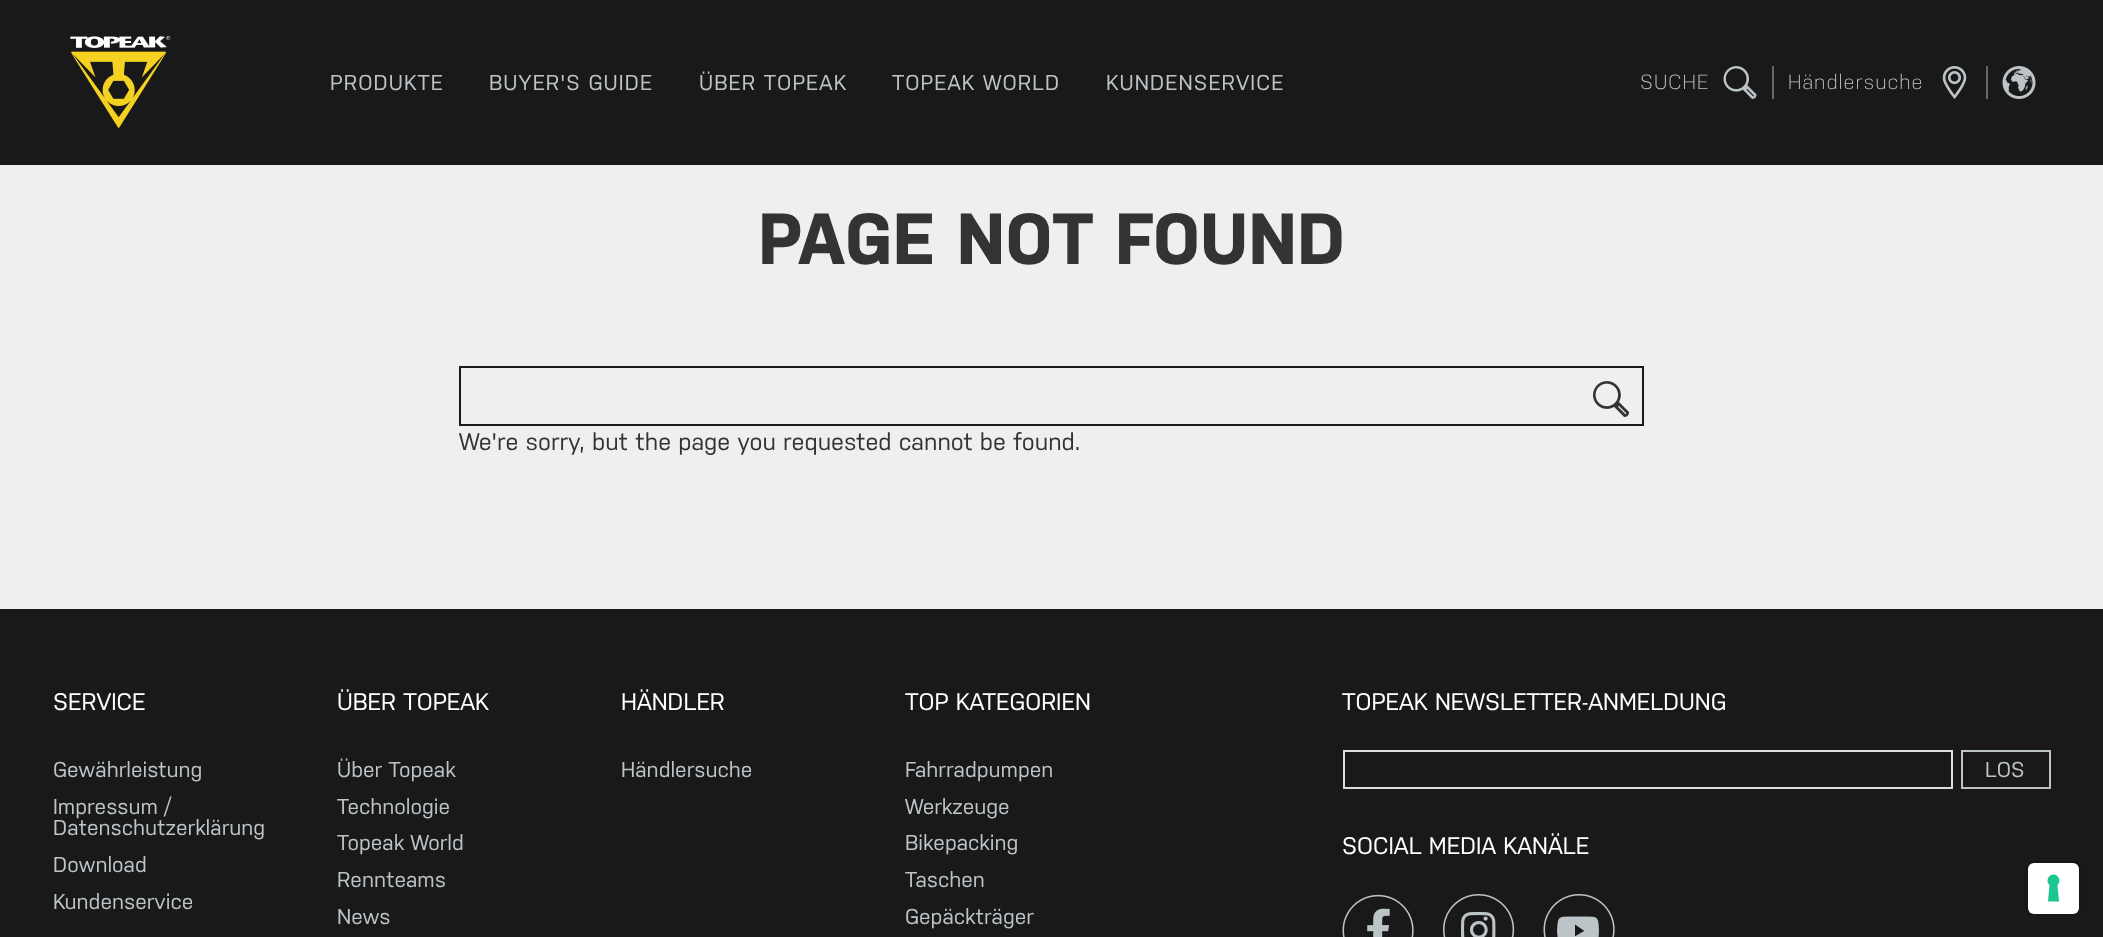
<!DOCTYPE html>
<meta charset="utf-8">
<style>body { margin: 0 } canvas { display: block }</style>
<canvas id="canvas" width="2103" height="937"></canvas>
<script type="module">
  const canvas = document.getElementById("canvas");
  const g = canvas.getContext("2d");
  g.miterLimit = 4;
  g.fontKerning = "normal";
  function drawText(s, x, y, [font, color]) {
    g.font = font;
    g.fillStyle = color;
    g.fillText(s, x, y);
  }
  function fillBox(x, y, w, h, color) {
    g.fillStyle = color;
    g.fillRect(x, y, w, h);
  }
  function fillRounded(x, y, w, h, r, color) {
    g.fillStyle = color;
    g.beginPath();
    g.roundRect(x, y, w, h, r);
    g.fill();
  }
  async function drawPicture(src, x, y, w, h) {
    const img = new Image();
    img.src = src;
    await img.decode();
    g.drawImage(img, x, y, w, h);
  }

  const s1 = ["500 21.5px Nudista", "#BCC4C8"];
  const s2 = ["300 20.5px Nudista", "#BCC4C8"];
  const s3 = ["bold 72px Nudista", "#333333"];
  const s4 = ["500 24px Nudista", "#333333"];
  const s5 = ["500 24px Nudista", "#FFFFFF"];

  fillBox(0, 0, 2103, 937, "#EFEFEF");
  fillBox(0, 0, 2103, 165, "#191919");
  await drawPicture("pic1.png", 70, 36, 101, 92);
  g.letterSpacing = "1.1px";
  drawText("PRODUKTE", 330, 90, s1);
  drawText("BUYER'S GUIDE", 489, 90, s1);
  drawText("ÜBER TOPEAK", 699, 90, s1);
  drawText("TOPEAK WORLD", 892, 90, s1);
  drawText("KUNDENSERVICE", 1106, 90, s1);
  g.letterSpacing = "1px";
  drawText("SUCHE", 1640, 89, s2);
  await drawPicture("pic2.png", 1723, 66, 34, 33);
  fillBox(1772, 66, 2, 33, "#666666");
  drawText("Händlersuche", 1788, 89, s2);
  await drawPicture("pic3.png", 1942, 66, 25, 33);
  fillBox(1986, 66, 2, 33, "#666666");
  await drawPicture("pic4.png", 2002, 66, 34, 33);
  g.letterSpacing = "0px";
  drawText("PAGE NOT FOUND", 758, 264, s3);
  g.strokeStyle = "#191919";
  g.lineWidth = 2;
  g.strokeRect(460, 367, 1183, 58);
  await drawPicture("pic5.png", 1593, 381, 36, 36);
  drawText("We're sorry, but the page you requested cannot be found.", 459, 450, s4);
  fillBox(0, 609, 2103, 328, "#191919");
  drawText("SERVICE", 53, 710, s5);
  drawText("Gewährleistung", 53, 777, s1);
  drawText("Impressum /", 53, 814, s1);
  drawText("Datenschutzerklärung", 53, 835, s1);
  drawText("Download", 53, 872, s1);
  drawText("Kundenservice", 53, 909, s1);
  drawText("ÜBER TOPEAK", 337, 710, s5);
  drawText("Über Topeak", 337, 777, s1);
  drawText("Technologie", 337, 814, s1);
  drawText("Topeak World", 337, 850, s1);
  drawText("Rennteams", 337, 887, s1);
  drawText("News", 337, 924, s1);
  drawText("HÄNDLER", 621, 710, s5);
  drawText("Händlersuche", 621, 777, s1);
  drawText("TOP KATEGORIEN", 905, 710, s5);
  drawText("Fahrradpumpen", 905, 777, s1);
  drawText("Werkzeuge", 905, 814, s1);
  drawText("Bikepacking", 905, 850, s1);
  drawText("Taschen", 905, 887, s1);
  drawText("Gepäckträger", 905, 924, s1);
  drawText("TOPEAK NEWSLETTER-ANMELDUNG", 1342, 710, s5);
  g.strokeStyle = "#DDDDDD";
  g.strokeRect(1344, 751, 608, 37);
  g.strokeStyle = "#BCC4C8";
  g.strokeRect(1962, 751, 88, 37);
  drawText("LOS", 1985, 777, s1);
  drawText("SOCIAL MEDIA KANÄLE", 1342, 854, s5);
  await drawPicture("pic6.png", 1342, 894, 72, 43);
  await drawPicture("pic7.png", 1443, 894, 72, 43);
  await drawPicture("pic8.png", 1543, 894, 72, 43);
  g.beginPath();
  g.roundRect(2028, 862, 52, 52, 7);
  g.strokeStyle = "#151515";
  g.stroke();
  fillRounded(2028, 863, 51, 51, 6, "#FFFFFF");
  g.fillStyle = "#1CC691";
  g.beginPath();
  g.moveTo(2053.5, 874.5);
  g.bezierCurveTo(2059, 874.5, 2061.5, 881.5, 2057.5, 885);
  g.lineTo(2059, 901.5);
  g.lineTo(2048, 901.5);
  g.lineTo(2049.5, 885);
  g.bezierCurveTo(2045.5, 881.5, 2048, 874.5, 2053.5, 874.5);
  g.closePath();
  g.fill("evenodd");
</script>
